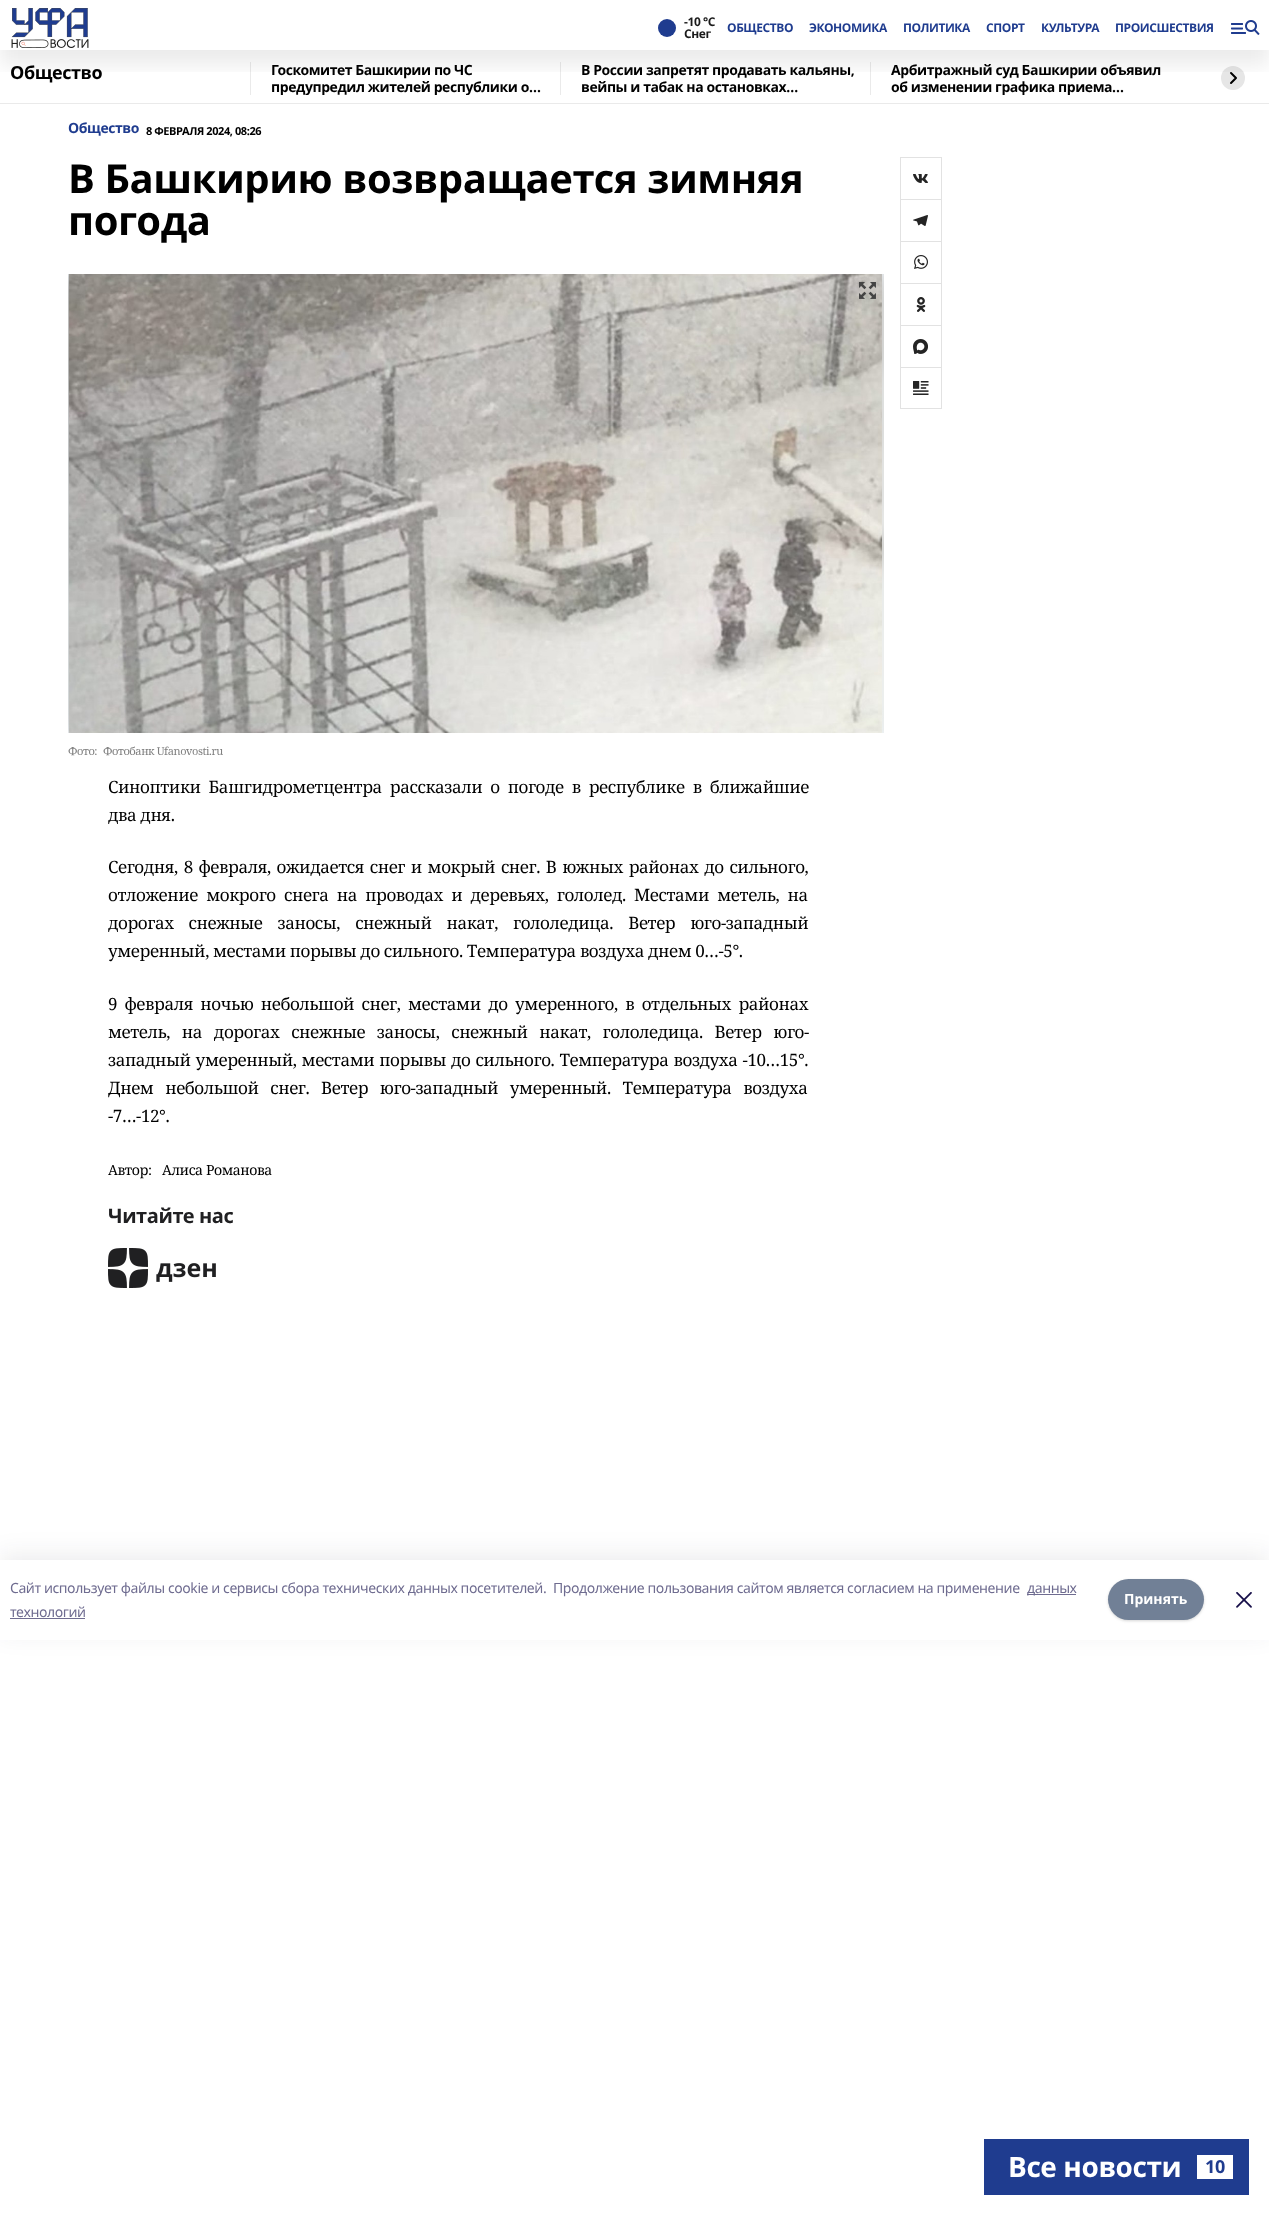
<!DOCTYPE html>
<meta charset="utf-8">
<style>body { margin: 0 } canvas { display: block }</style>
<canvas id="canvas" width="1269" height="2215"></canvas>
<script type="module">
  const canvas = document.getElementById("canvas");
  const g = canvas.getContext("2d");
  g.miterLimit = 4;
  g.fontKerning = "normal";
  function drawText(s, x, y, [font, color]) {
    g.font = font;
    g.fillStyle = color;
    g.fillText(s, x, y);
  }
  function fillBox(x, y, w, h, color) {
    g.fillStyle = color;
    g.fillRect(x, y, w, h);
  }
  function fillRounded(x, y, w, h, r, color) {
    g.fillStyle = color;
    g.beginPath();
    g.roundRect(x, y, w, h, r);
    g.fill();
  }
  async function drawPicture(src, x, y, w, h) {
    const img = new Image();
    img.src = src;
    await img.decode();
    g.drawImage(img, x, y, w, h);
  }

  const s1 = ["bold 12px Noto Sans", "#1A1A1A"];
  const s2 = ["bold 12px Noto Sans", "#1F3C8F"];
  const s3 = ["bold 18px Noto Sans", "#000000"];
  const s4 = ["bold 14px Noto Sans", "#000000"];
  const s5 = ["bold 14px Noto Sans", "#1F3C8F"];
  const s6 = ["bold 11px Noto Sans", "#000000"];
  const s7 = ["bold 40px Noto Sans", "#000000"];
  const s8 = ["11px Noto Serif", "#808080"];
  const s9 = ["17px Noto Serif", "#000000"];
  const s10 = ["14px Noto Serif", "#000000"];
  const s11 = ["bold 20px Noto Sans", "#202022"];
  const s12 = ["bold 28px Noto Sans", "#FFFFFF"];
  const s13 = ["bold 18px Noto Sans", "#1F3C8F"];
  const s14 = ["14px Noto Sans", "#6F6C90"];
  const s15 = ["bold 14px Noto Sans", "#FFFFFF"];

  fillBox(0, 0, 1269, 2215, "#FFFFFF");
  fillBox(250, 62, 1, 33, "#EAEAEA");
  fillBox(560, 62, 1, 33, "#EAEAEA");
  fillBox(870, 62, 1, 33, "#EAEAEA");
  g.fillStyle = "#E6E6E6";
  g.beginPath();
  g.arc(1233, 78, 12, 0, Math.PI * 2);
  g.fill();
  g.beginPath();
  g.moveTo(1231, 73);
  g.lineTo(1236, 78);
  g.lineTo(1231, 83);
  g.strokeStyle = "#000000";
  g.lineWidth = 2;
  g.lineCap = "round";
  g.lineJoin = "round";
  g.stroke();
  g.save();
  g.beginPath();
  g.rect(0, 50, 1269, 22);
  g.clip();
  g.fillStyle = "rgba(0, 0, 0, 0.08)";
  g.filter = "blur(10px)";
  g.beginPath();
  g.rect(0, 15, 1269, 50);
  g.fill();
  g.filter = "none";
  g.restore();
  await drawPicture("pic1.png", 11, 8, 78, 40);
  g.fillStyle = "#1F3C8F";
  g.beginPath();
  g.arc(667, 28, 9, 0, Math.PI * 2);
  g.fill();
  g.letterSpacing = "-0.42px";
  drawText("-10 °С", 684, 26, s1);
  drawText("Снег", 684, 38, s1);
  drawText("ОБЩЕСТВО", 727, 32, s2);
  drawText("ЭКОНОМИКА", 809, 32, s2);
  drawText("ПОЛИТИКА", 903, 32, s2);
  drawText("СПОРТ", 986, 32, s2);
  drawText("КУЛЬТУРА", 1041, 32, s2);
  drawText("ПРОИСШЕСТВИЯ", 1115, 32, s2);
  await drawPicture("pic2.png", 1231, 20, 29, 15);
  fillBox(0, 103, 1269, 1, "#EAEAEA");
  drawText("Общество", 10, 79, s3);
  drawText("Госкомитет Башкирии по ЧС", 271, 75, s4);
  g.save();
  g.beginPath();
  g.rect(251, 62, 309, 33);
  g.clip();
  drawText("предупредил жителей республики о…", 271, 92, s4);
  g.restore();
  drawText("В России запретят продавать кальяны,", 581, 75, s4);
  drawText("вейпы и табак на остановках…", 581, 92, s4);
  drawText("Арбитражный суд Башкирии объявил", 891, 75, s4);
  g.save();
  g.beginPath();
  g.rect(871, 62, 309, 33);
  g.clip();
  drawText("об изменении графика приема…", 891, 92, s4);
  g.restore();
  drawText("Общество", 68, 133, s5);
  drawText("8 ФЕВРАЛЯ 2024, 08:26", 146, 135, s6);
  drawText("В Башкирию возвращается зимняя", 68, 193, s7);
  drawText("погода", 68, 235, s7);
  fillBox(68, 274, 816, 459, "#EDF2F7");
  await drawPicture("pic3.png", 68, 274, 816, 459);
  await drawPicture("pic4.png", 69, 274, 813, 459);
  await drawPicture("pic5.png", 859, 282, 17, 17);
  drawText("Фото:", 68, 755, s8);
  drawText("Фотобанк Ufanovosti.ru", 103, 755, s8);
  g.wordSpacing = "4px";
  drawText("Синоптики Башгидрометцентра рассказали о погоде в республике в ближайшие", 108, 793, s9);
  g.wordSpacing = "0px";
  drawText("два дня.", 108, 821, s9);
  g.wordSpacing = "1.75px";
  drawText("Сегодня, 8 февраля, ожидается снег и мокрый снег. В южных районах до сильного,", 108, 873, s9);
  g.wordSpacing = "4.25px";
  drawText("отложение мокрого снега на проводах и деревьях, гололед. Местами метель, на", 108, 901, s9);
  g.wordSpacing = "11px";
  drawText("дорогах снежные заносы, снежный накат, гололедица. Ветер юго-западный", 108, 929, s9);
  g.wordSpacing = "0px";
  drawText("умеренный, местами порывы до сильного. Температура воздуха днем 0…-5°.", 108, 957, s9);
  g.wordSpacing = "3.4px";
  drawText("9 февраля ночью небольшой снег, местами до умеренного, в отдельных районах", 108, 1010, s9);
  g.wordSpacing = "7.75px";
  drawText("метель, на дорогах снежные заносы, снежный накат, гололедица. Ветер юго-", 108, 1038, s9);
  g.wordSpacing = "1px";
  drawText("западный умеренный, местами порывы до сильного. Температура воздуха -10…15°.", 108, 1066, s9);
  g.wordSpacing = "7.75px";
  drawText("Днем небольшой снег. Ветер юго-западный умеренный. Температура воздуха", 108, 1094, s9);
  g.wordSpacing = "0px";
  drawText("-7…-12°.", 108, 1122, s9);
  drawText("Автор:", 108, 1175, s10);
  drawText("Алиса Романова", 162, 1175, s10);
  drawText("Читайте нас", 108, 1223, s11);
  await drawPicture("pic6.png", 108, 1248, 108, 40);
  await drawPicture("pic7.png", 913, 174, 15, 9);
  fillBox(900, 157, 42, 1, "#E2E2E2");
  fillBox(941, 157, 1, 42, "#E2E2E2");
  fillBox(900, 157, 1, 42, "#E2E2E2");
  await drawPicture("pic8.png", 913, 215, 15, 11);
  fillBox(900, 199, 42, 1, "#E2E2E2");
  fillBox(941, 199, 1, 42, "#E2E2E2");
  fillBox(900, 199, 1, 42, "#E2E2E2");
  await drawPicture("pic9.png", 914, 255, 14, 14);
  fillBox(900, 241, 42, 1, "#E2E2E2");
  fillBox(941, 241, 1, 42, "#E2E2E2");
  fillBox(900, 241, 1, 42, "#E2E2E2");
  await drawPicture("pic10.png", 916, 297, 10, 15);
  fillBox(900, 283, 42, 1, "#E2E2E2");
  fillBox(941, 283, 1, 42, "#E2E2E2");
  fillBox(900, 283, 1, 42, "#E2E2E2");
  await drawPicture("pic11.png", 913, 339, 15, 15);
  fillBox(900, 325, 42, 1, "#E2E2E2");
  fillBox(941, 325, 1, 42, "#E2E2E2");
  fillBox(900, 325, 1, 42, "#E2E2E2");
  await drawPicture("pic12.png", 913, 381, 16, 14);
  g.strokeStyle = "#E2E2E2";
  g.lineWidth = 1;
  g.lineJoin = "miter";
  g.strokeRect(900.5, 367.5, 41, 41);
  fillBox(984, 2139, 265, 56, "#1F3C8F");
  drawText("Все новости", 1008, 2177, s12);
  fillBox(1197, 2155, 36, 24, "#FFFFFF");
  drawText("10", 1205, 2173, s13);
  g.save();
  g.beginPath();
  g.moveTo(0, 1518);
  g.lineTo(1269, 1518);
  g.lineTo(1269, 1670);
  g.lineTo(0, 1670);
  g.closePath();
  g.moveTo(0, 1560);
  g.lineTo(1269, 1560);
  g.lineTo(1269, 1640);
  g.lineTo(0, 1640);
  g.closePath();
  g.clip("evenodd");
  g.fillStyle = "rgba(20, 20, 43, 0.08)";
  g.filter = "blur(11.5px)";
  g.beginPath();
  g.rect(0, 1554, 1269, 80);
  g.fill();
  g.filter = "none";
  g.restore();
  drawText("Cайт использует файлы cookie и сервисы сбора технических данных посетителей.", 10, 1593, s14);
  drawText("Продолжение пользования сайтом является согласием на применение", 553, 1593, s14);
  fillBox(1027, 1594, 49, 1, "#6F6C90");
  drawText("данных", 1027, 1593, s14);
  drawText("технологий", 10, 1617, s14);
  fillBox(10, 1618, 75, 1, "#6F6C90");
  g.fillStyle = "rgba(0, 0, 0, 0.06)";
  g.filter = "blur(1px)";
  g.beginPath();
  g.roundRect(1108, 1580, 96, 41, 20.5);
  g.fill();
  g.filter = "none";
  g.fillStyle = "rgba(0, 0, 0, 0.1)";
  g.filter = "blur(1.5px)";
  g.beginPath();
  g.roundRect(1108, 1580, 96, 41, 20.5);
  g.fill();
  g.filter = "none";
  fillRounded(1108, 1579, 96, 41, 20.5, "#718096");
  g.letterSpacing = "0px";
  drawText("Принять", 1124, 1604, s15);
  await drawPicture("pic13.png", 1236, 1592, 16, 16);
</script>
